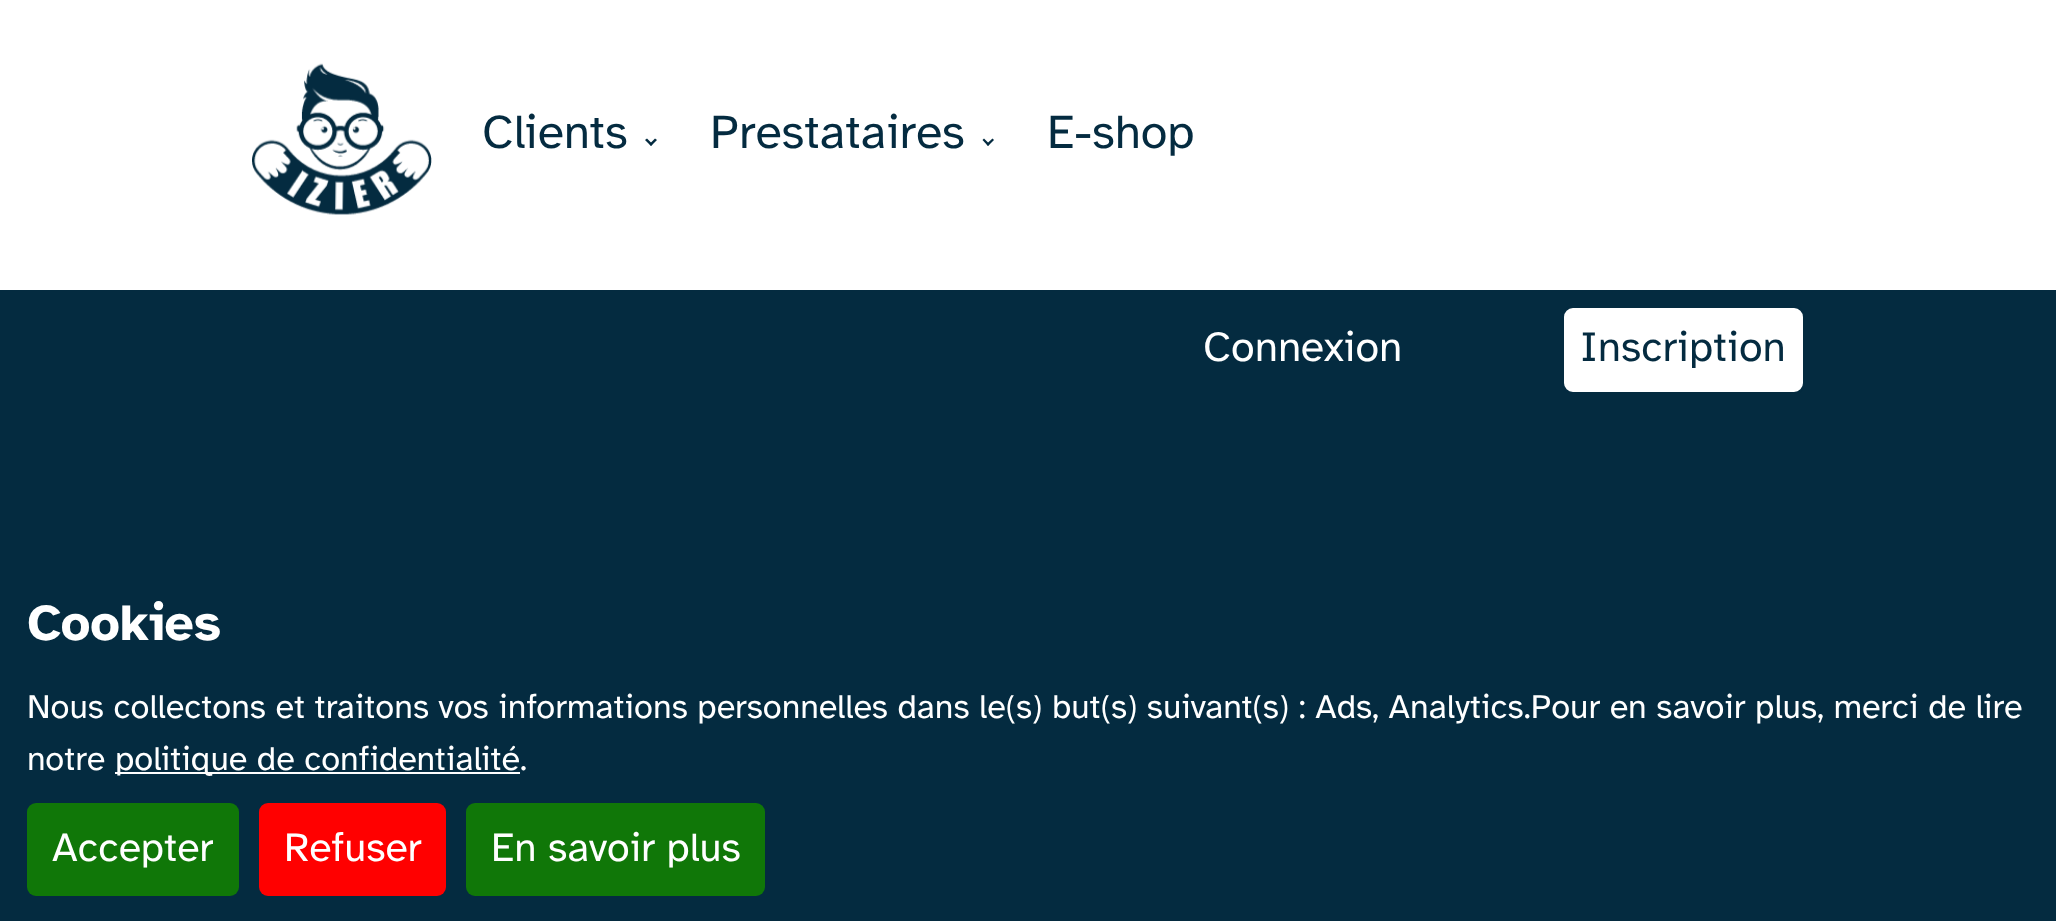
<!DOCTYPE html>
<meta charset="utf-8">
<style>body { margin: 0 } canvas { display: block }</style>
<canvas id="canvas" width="2056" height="921"></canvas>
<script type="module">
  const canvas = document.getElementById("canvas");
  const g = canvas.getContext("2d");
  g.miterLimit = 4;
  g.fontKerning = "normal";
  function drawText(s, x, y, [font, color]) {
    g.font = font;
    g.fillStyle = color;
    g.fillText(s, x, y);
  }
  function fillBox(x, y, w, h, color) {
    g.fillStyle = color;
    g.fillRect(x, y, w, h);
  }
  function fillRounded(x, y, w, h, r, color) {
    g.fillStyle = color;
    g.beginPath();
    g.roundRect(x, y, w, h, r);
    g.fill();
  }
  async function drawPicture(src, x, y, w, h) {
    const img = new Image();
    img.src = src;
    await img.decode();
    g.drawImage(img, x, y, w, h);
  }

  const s1 = ["48.25px Atkinson Hyperlegible", "#042B40"];
  const s2 = ["42.75px Atkinson Hyperlegible", "#FFFFFF"];
  const s3 = ["42.75px Atkinson Hyperlegible", "#042B40"];
  const s4 = ["bold 51.5px Atkinson Hyperlegible", "#FFFFFF"];
  const s5 = ["34.2px Atkinson Hyperlegible", "#FFFFFF"];
  const s6 = ["41px Atkinson Hyperlegible", "#FFFFFF"];

  fillBox(0, 0, 2056, 921, "#042B40");
  fillBox(0, 0, 2056, 290, "#FFFFFF");
  await drawPicture("pic1.png", 252, 63, 180, 152);
  drawText("Clients", 482, 148, s1);
  g.beginPath();
  g.moveTo(657, 140);
  g.lineTo(651, 146);
  g.lineTo(649.5, 144);
  g.lineTo(655, 138.5);
  g.closePath();
  g.fill();
  g.beginPath();
  g.moveTo(652.5, 144);
  g.lineTo(651, 146);
  g.lineTo(645, 140);
  g.lineTo(647, 138.5);
  g.closePath();
  g.fill();
  drawText("Prestataires", 710, 148, s1);
  g.beginPath();
  g.moveTo(994, 140);
  g.lineTo(988, 146);
  g.lineTo(986.5, 144);
  g.lineTo(992.5, 138.5);
  g.closePath();
  g.fill();
  g.beginPath();
  g.moveTo(989.5, 144);
  g.lineTo(988, 146);
  g.lineTo(982.5, 140);
  g.lineTo(984, 138.5);
  g.closePath();
  g.fill();
  drawText("E-shop", 1047, 148, s1);
  drawText("Connexion", 1203, 361, s2);
  g.beginPath();
  g.roundRect(1563, 307, 241, 86, 10);
  g.fill();
  g.strokeStyle = "#042B40";
  g.lineWidth = 2;
  g.stroke();
  drawText("Inscription", 1580, 361, s3);
  drawText("Cookies", 27, 640, s4);
  drawText("Nous collectons et traitons vos informations personnelles dans le(s) but(s) suivant(s) : Ads, Analytics.Pour en savoir plus, merci de lire", 27, 718, s5);
  drawText("notre", 27, 770, s5);
  fillBox(115, 772, 405, 2, "#FFFFFF");
  drawText("politique de confidentialité", 115, 770, s5);
  drawText(".", 520, 770, s5);
  fillRounded(27, 803, 212, 93, 9, "#107708");
  drawText("Accepter", 52, 861, s6);
  fillRounded(259, 803, 187, 93, 9, "#FF0000");
  drawText("Refuser", 284, 861, s6);
  fillRounded(466, 803, 299, 93, 9, "#107708");
  drawText("En savoir plus", 491, 861, s6);
</script>
